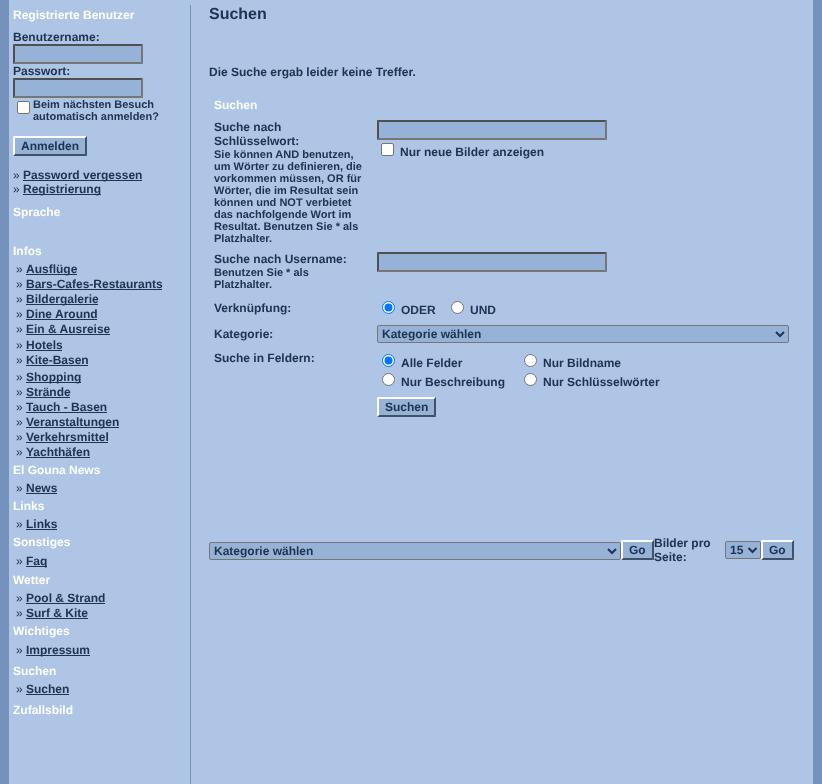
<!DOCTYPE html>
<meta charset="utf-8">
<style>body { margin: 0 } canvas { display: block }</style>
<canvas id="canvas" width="822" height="784"></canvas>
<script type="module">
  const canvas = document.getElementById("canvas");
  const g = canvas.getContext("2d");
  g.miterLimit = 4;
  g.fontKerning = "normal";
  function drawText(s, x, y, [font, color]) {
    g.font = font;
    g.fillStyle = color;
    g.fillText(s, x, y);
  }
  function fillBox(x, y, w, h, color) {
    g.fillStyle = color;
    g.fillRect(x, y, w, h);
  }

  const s1 = ["bold 12px Liberation Sans", "#FFFFFF"];
  const s2 = ["bold 12px Liberation Sans", "#203452"];
  const s3 = ["bold 11px Liberation Sans", "#203452"];
  const s4 = ["12px Liberation Sans", "#203452"];
  const s5 = ["bold 16px Liberation Sans", "#203452"];

  fillBox(0, 0, 822, 784, "#7492BC");
  fillBox(9, 0, 804, 784, "#AEC5E5");
  drawText("Registrierte Benutzer", 13, 19, s1);
  drawText("Benutzername:", 13, 41, s2);
  fillBox(13, 44, 130, 20, "#96B2D7");
  g.fillStyle = "#4F4F4F";
  g.beginPath();
  g.moveTo(13, 44);
  g.lineTo(143, 44);
  g.lineTo(141, 46);
  g.lineTo(15, 46);
  g.closePath();
  g.fill();
  g.fillStyle = "#767676";
  g.beginPath();
  g.moveTo(143, 44);
  g.lineTo(143, 64);
  g.lineTo(141, 62);
  g.lineTo(141, 46);
  g.closePath();
  g.fill();
  g.beginPath();
  g.moveTo(143, 64);
  g.lineTo(13, 64);
  g.lineTo(15, 62);
  g.lineTo(141, 62);
  g.closePath();
  g.fill();
  g.fillStyle = "#4F4F4F";
  g.beginPath();
  g.moveTo(13, 64);
  g.lineTo(13, 44);
  g.lineTo(15, 46);
  g.lineTo(15, 62);
  g.closePath();
  g.fill();
  drawText("Passwort:", 13, 75, s2);
  fillBox(13, 78, 130, 20, "#96B2D7");
  g.fillStyle = "#4F4F4F";
  g.beginPath();
  g.moveTo(13, 78);
  g.lineTo(143, 78);
  g.lineTo(141, 80);
  g.lineTo(15, 80);
  g.closePath();
  g.fill();
  g.fillStyle = "#767676";
  g.beginPath();
  g.moveTo(143, 78);
  g.lineTo(143, 98);
  g.lineTo(141, 96);
  g.lineTo(141, 80);
  g.closePath();
  g.fill();
  g.beginPath();
  g.moveTo(143, 98);
  g.lineTo(13, 98);
  g.lineTo(15, 96);
  g.lineTo(141, 96);
  g.closePath();
  g.fill();
  g.fillStyle = "#4F4F4F";
  g.beginPath();
  g.moveTo(13, 98);
  g.lineTo(13, 78);
  g.lineTo(15, 80);
  g.lineTo(15, 96);
  g.closePath();
  g.fill();
  g.fillStyle = "#FFFFFF";
  g.beginPath();
  g.roundRect(17.5, 101.5, 12, 12, 1.5);
  g.fill();
  g.strokeStyle = "#767676";
  g.stroke();
  drawText("Beim nächsten Besuch", 33, 108, s3);
  drawText("automatisch anmelden?", 33, 120, s3);
  fillBox(13, 136, 74, 20, "#96B2D7");
  g.fillStyle = "#FFFFFF";
  g.beginPath();
  g.moveTo(13, 136);
  g.lineTo(87, 136);
  g.lineTo(85, 138);
  g.lineTo(15, 138);
  g.closePath();
  g.fill();
  g.fillStyle = "#415169";
  g.beginPath();
  g.moveTo(87, 136);
  g.lineTo(87, 156);
  g.lineTo(85, 154);
  g.lineTo(85, 138);
  g.closePath();
  g.fill();
  g.beginPath();
  g.moveTo(87, 156);
  g.lineTo(13, 156);
  g.lineTo(15, 154);
  g.lineTo(85, 154);
  g.closePath();
  g.fill();
  g.fillStyle = "#FFFFFF";
  g.beginPath();
  g.moveTo(13, 156);
  g.lineTo(13, 136);
  g.lineTo(15, 138);
  g.lineTo(15, 154);
  g.closePath();
  g.fill();
  drawText("Anmelden", 21, 150, s2);
  drawText("»", 13, 179, s4);
  fillBox(23, 180, 119, 1, "#203452");
  drawText("Password vergessen", 23, 179, s2);
  drawText("»", 13, 193, s4);
  fillBox(23, 194, 78, 1, "#203452");
  drawText("Registrierung", 23, 193, s2);
  drawText("Sprache", 13, 216, s1);
  drawText("Infos", 13, 255, s1);
  drawText("»", 16, 273, s4);
  fillBox(26, 274, 51, 1, "#203452");
  drawText("Ausflüge", 26, 273, s2);
  drawText("»", 16, 288, s4);
  drawText("Bars-Cafes-Restaurants", 26, 288, s2);
  fillBox(26, 289, 136, 1, "#203452");
  drawText("»", 16, 303, s4);
  fillBox(26, 304, 72, 1, "#203452");
  drawText("Bildergalerie", 26, 303, s2);
  drawText("»", 16, 318, s4);
  drawText("Dine", 26, 318, s2);
  fillBox(26, 319, 71, 1, "#203452");
  drawText("Around", 55, 318, s2);
  drawText("»", 16, 333, s4);
  drawText("Ein & Ausreise", 26, 333, s2);
  fillBox(26, 334, 84, 1, "#203452");
  drawText("»", 16, 349, s4);
  drawText("Hotels", 26, 349, s2);
  fillBox(26, 350, 36, 1, "#203452");
  drawText("»", 16, 364, s4);
  drawText("Kite-Basen", 26, 364, s2);
  fillBox(26, 365, 62, 1, "#203452");
  drawText("»", 16, 381, s4);
  fillBox(26, 382, 55, 1, "#203452");
  drawText("Shopping", 26, 381, s2);
  drawText("»", 16, 396, s4);
  drawText("Strände", 26, 396, s2);
  fillBox(26, 397, 44, 1, "#203452");
  drawText("»", 16, 411, s4);
  drawText("Tauch - Basen", 26, 411, s2);
  fillBox(26, 412, 81, 1, "#203452");
  drawText("»", 16, 426, s4);
  fillBox(26, 427, 93, 1, "#203452");
  drawText("Veranstaltungen", 26, 426, s2);
  drawText("»", 16, 441, s4);
  drawText("Verkehrsmittel", 26, 441, s2);
  fillBox(26, 442, 82, 1, "#203452");
  drawText("»", 16, 456, s4);
  drawText("Yachthäfen", 26, 456, s2);
  fillBox(26, 457, 64, 1, "#203452");
  drawText("El Gouna News", 13, 474, s1);
  drawText("»", 16, 492, s4);
  drawText("News", 26, 492, s2);
  fillBox(26, 493, 31, 1, "#203452");
  drawText("Links", 13, 510, s1);
  drawText("»", 16, 528, s4);
  drawText("Links", 26, 528, s2);
  fillBox(26, 529, 31, 1, "#203452");
  drawText("Sonstiges", 13, 546, s1);
  drawText("»", 16, 565, s4);
  fillBox(26, 566, 21, 1, "#203452");
  drawText("Faq", 26, 565, s2);
  drawText("Wetter", 13, 584, s1);
  drawText("»", 16, 602, s4);
  drawText("Pool & Strand", 26, 602, s2);
  fillBox(26, 603, 79, 1, "#203452");
  drawText("»", 16, 617, s4);
  drawText("Surf & Kite", 26, 617, s2);
  fillBox(26, 618, 62, 1, "#203452");
  drawText("Wichtiges", 13, 635, s1);
  drawText("»", 16, 654, s4);
  fillBox(26, 655, 64, 1, "#203452");
  drawText("Impressum", 26, 654, s2);
  drawText("Suchen", 13, 675, s1);
  drawText("»", 16, 693, s4);
  drawText("Suchen", 26, 693, s2);
  fillBox(26, 694, 43, 1, "#203452");
  drawText("Zufallsbild", 13, 714, s1);
  fillBox(190, 5, 1, 779, "#7492BC");
  drawText("Suchen", 209, 19, s5);
  drawText("Die Suche ergab leider keine Treffer.", 209, 76, s2);
  drawText("Suchen", 214, 109, s1);
  drawText("Suche nach", 214, 131, s2);
  drawText("Schlüsselwort:", 214, 145, s2);
  drawText("Sie können AND benutzen,", 214, 158, s3);
  drawText("um Wörter zu definieren, die", 214, 170, s3);
  drawText("vorkommen müssen, OR für", 214, 182, s3);
  drawText("Wörter, die im Resultat sein", 214, 194, s3);
  drawText("können und NOT verbietet", 214, 206, s3);
  drawText("das nachfolgende Wort im", 214, 218, s3);
  drawText("Resultat. Benutzen Sie * als", 214, 230, s3);
  drawText("Platzhalter.", 214, 242, s3);
  fillBox(377, 120, 230, 20, "#96B2D7");
  g.fillStyle = "#4F4F4F";
  g.beginPath();
  g.moveTo(377, 120);
  g.lineTo(607, 120);
  g.lineTo(605, 122);
  g.lineTo(379, 122);
  g.closePath();
  g.fill();
  g.fillStyle = "#767676";
  g.beginPath();
  g.moveTo(607, 120);
  g.lineTo(607, 140);
  g.lineTo(605, 138);
  g.lineTo(605, 122);
  g.closePath();
  g.fill();
  g.beginPath();
  g.moveTo(607, 140);
  g.lineTo(377, 140);
  g.lineTo(379, 138);
  g.lineTo(605, 138);
  g.closePath();
  g.fill();
  g.fillStyle = "#4F4F4F";
  g.beginPath();
  g.moveTo(377, 140);
  g.lineTo(377, 120);
  g.lineTo(379, 122);
  g.lineTo(379, 138);
  g.closePath();
  g.fill();
  g.fillStyle = "#FFFFFF";
  g.beginPath();
  g.roundRect(381.5, 143.5, 12, 12, 1.5);
  g.fill();
  g.stroke();
  drawText("Nur neue Bilder anzeigen", 400, 156, s2);
  drawText("Suche nach Username:", 214, 263, s2);
  drawText("Benutzen Sie * als", 214, 276, s3);
  drawText("Platzhalter.", 214, 288, s3);
  fillBox(377, 252, 230, 20, "#96B2D7");
  g.fillStyle = "#4F4F4F";
  g.beginPath();
  g.moveTo(377, 252);
  g.lineTo(607, 252);
  g.lineTo(605, 254);
  g.lineTo(379, 254);
  g.closePath();
  g.fill();
  g.fillStyle = "#767676";
  g.beginPath();
  g.moveTo(607, 252);
  g.lineTo(607, 272);
  g.lineTo(605, 270);
  g.lineTo(605, 254);
  g.closePath();
  g.fill();
  g.beginPath();
  g.moveTo(607, 272);
  g.lineTo(377, 272);
  g.lineTo(379, 270);
  g.lineTo(605, 270);
  g.closePath();
  g.fill();
  g.fillStyle = "#4F4F4F";
  g.beginPath();
  g.moveTo(377, 272);
  g.lineTo(377, 252);
  g.lineTo(379, 254);
  g.lineTo(379, 270);
  g.closePath();
  g.fill();
  drawText("Verknüpfung:", 214, 312, s2);
  g.fillStyle = "#FFFFFF";
  g.beginPath();
  g.arc(388.5, 307.5, 6, 0, Math.PI * 2);
  g.fill();
  g.strokeStyle = "#0075FF";
  g.stroke();
  g.fillStyle = "#0075FF";
  g.beginPath();
  g.arc(388.5, 307.5, 4, 0, Math.PI * 2);
  g.fill();
  drawText("ODER", 401, 314, s2);
  g.fillStyle = "#FFFFFF";
  g.beginPath();
  g.arc(457.5, 307.5, 6, 0, Math.PI * 2);
  g.fill();
  g.strokeStyle = "#767676";
  g.stroke();
  drawText("UND", 470, 314, s2);
  drawText("Kategorie:", 214, 338, s2);
  g.fillStyle = "#96B2D7";
  g.beginPath();
  g.roundRect(377.5, 325.5, 411, 17, 1.5);
  g.fill();
  g.stroke();
  g.beginPath();
  g.moveTo(776, 332);
  g.lineTo(780, 336);
  g.lineTo(784, 332);
  g.strokeStyle = "#203452";
  g.lineWidth = 2;
  g.stroke();
  drawText("Kategorie wählen", 382, 338, s2);
  drawText("Suche in Feldern:", 214, 362, s2);
  g.fillStyle = "#FFFFFF";
  g.beginPath();
  g.arc(388.5, 360.5, 6, 0, Math.PI * 2);
  g.fill();
  g.strokeStyle = "#0075FF";
  g.lineWidth = 1;
  g.stroke();
  g.fillStyle = "#0075FF";
  g.beginPath();
  g.arc(388.5, 360.5, 4, 0, Math.PI * 2);
  g.fill();
  drawText("Alle Felder", 401, 367, s2);
  g.fillStyle = "#FFFFFF";
  g.beginPath();
  g.arc(530.5, 360.5, 6, 0, Math.PI * 2);
  g.fill();
  g.strokeStyle = "#767676";
  g.stroke();
  drawText("Nur Bildname", 543, 367, s2);
  g.fillStyle = "#FFFFFF";
  g.beginPath();
  g.arc(388.5, 379.5, 6, 0, Math.PI * 2);
  g.fill();
  g.stroke();
  drawText("Nur Beschreibung", 401, 386, s2);
  g.fillStyle = "#FFFFFF";
  g.beginPath();
  g.arc(530.5, 379.5, 6, 0, Math.PI * 2);
  g.fill();
  g.stroke();
  drawText("Nur Schlüsselwörter", 543, 386, s2);
  fillBox(377, 397, 59, 20, "#96B2D7");
  g.fillStyle = "#FFFFFF";
  g.beginPath();
  g.moveTo(377, 397);
  g.lineTo(436, 397);
  g.lineTo(434, 399);
  g.lineTo(379, 399);
  g.closePath();
  g.fill();
  g.fillStyle = "#415169";
  g.beginPath();
  g.moveTo(436, 397);
  g.lineTo(436, 417);
  g.lineTo(434, 415);
  g.lineTo(434, 399);
  g.closePath();
  g.fill();
  g.beginPath();
  g.moveTo(436, 417);
  g.lineTo(377, 417);
  g.lineTo(379, 415);
  g.lineTo(434, 415);
  g.closePath();
  g.fill();
  g.fillStyle = "#FFFFFF";
  g.beginPath();
  g.moveTo(377, 417);
  g.lineTo(377, 397);
  g.lineTo(379, 399);
  g.lineTo(379, 415);
  g.closePath();
  g.fill();
  drawText("Suchen", 385, 411, s2);
  g.fillStyle = "#96B2D7";
  g.beginPath();
  g.roundRect(209.5, 542.5, 411, 17, 1.5);
  g.fill();
  g.stroke();
  g.beginPath();
  g.moveTo(608, 549);
  g.lineTo(612, 553);
  g.lineTo(616, 549);
  g.strokeStyle = "#203452";
  g.lineWidth = 2;
  g.stroke();
  drawText("Kategorie wählen", 214, 555, s2);
  fillBox(621, 540, 33, 20, "#96B2D7");
  g.fillStyle = "#FFFFFF";
  g.beginPath();
  g.moveTo(621, 540);
  g.lineTo(654, 540);
  g.lineTo(652, 542);
  g.lineTo(623, 542);
  g.closePath();
  g.fill();
  g.fillStyle = "#415169";
  g.beginPath();
  g.moveTo(654, 540);
  g.lineTo(654, 560);
  g.lineTo(652, 558);
  g.lineTo(652, 542);
  g.closePath();
  g.fill();
  g.beginPath();
  g.moveTo(654, 560);
  g.lineTo(621, 560);
  g.lineTo(623, 558);
  g.lineTo(652, 558);
  g.closePath();
  g.fill();
  g.fillStyle = "#FFFFFF";
  g.beginPath();
  g.moveTo(621, 560);
  g.lineTo(621, 540);
  g.lineTo(623, 542);
  g.lineTo(623, 558);
  g.closePath();
  g.fill();
  drawText("Go", 629, 554, s2);
  drawText("Bilder pro", 654, 547, s2);
  drawText("Seite:", 654, 561, s2);
  g.fillStyle = "#96B2D7";
  g.beginPath();
  g.roundRect(725.5, 541.5, 35, 17, 1.5);
  g.fill();
  g.strokeStyle = "#767676";
  g.lineWidth = 1;
  g.stroke();
  g.beginPath();
  g.moveTo(748.5, 548);
  g.lineTo(752.5, 552);
  g.lineTo(756.5, 548);
  g.strokeStyle = "#203452";
  g.lineWidth = 2;
  g.stroke();
  drawText("15", 730, 554, s2);
  fillBox(761, 540, 33, 20, "#96B2D7");
  g.fillStyle = "#FFFFFF";
  g.beginPath();
  g.moveTo(761, 540);
  g.lineTo(794, 540);
  g.lineTo(792, 542);
  g.lineTo(763, 542);
  g.closePath();
  g.fill();
  g.fillStyle = "#415169";
  g.beginPath();
  g.moveTo(794, 540);
  g.lineTo(794, 560);
  g.lineTo(792, 558);
  g.lineTo(792, 542);
  g.closePath();
  g.fill();
  g.beginPath();
  g.moveTo(794, 560);
  g.lineTo(761, 560);
  g.lineTo(763, 558);
  g.lineTo(792, 558);
  g.closePath();
  g.fill();
  g.fillStyle = "#FFFFFF";
  g.beginPath();
  g.moveTo(761, 560);
  g.lineTo(761, 540);
  g.lineTo(763, 542);
  g.lineTo(763, 558);
  g.closePath();
  g.fill();
  drawText("Go", 769, 554, s2);
</script>
